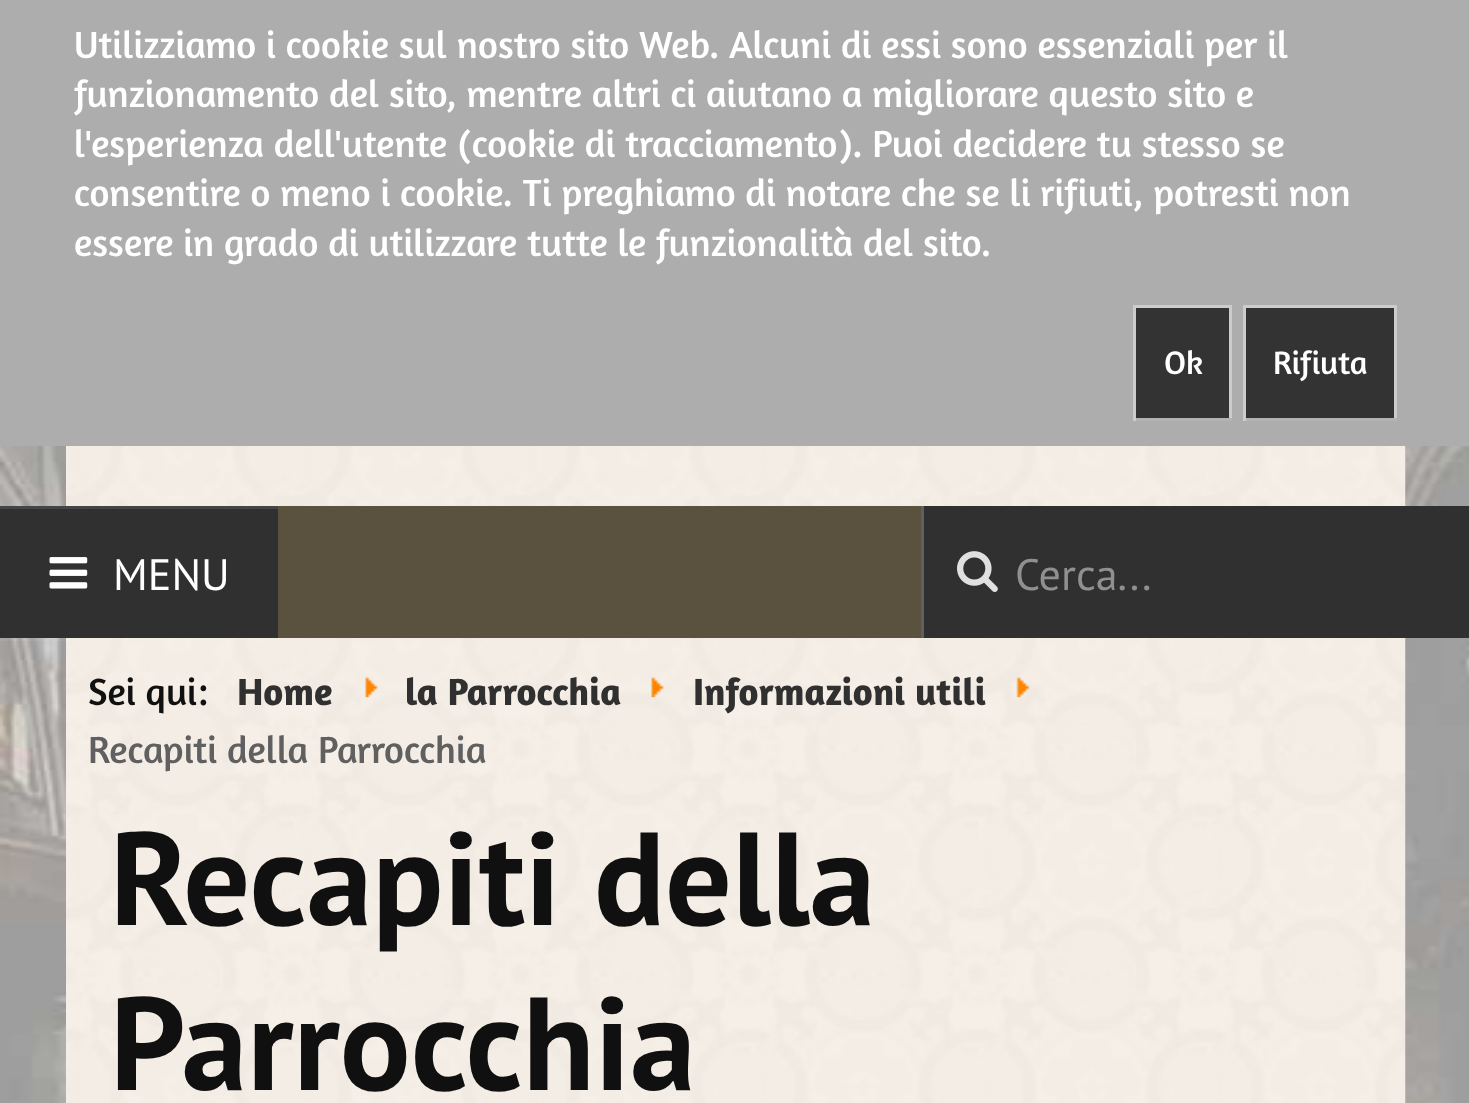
<!DOCTYPE html>
<meta charset="utf-8">
<style>body { margin: 0 } canvas { display: block }</style>
<canvas id="canvas" width="1469" height="1103"></canvas>
<script type="module">
  const canvas = document.getElementById("canvas");
  const g = canvas.getContext("2d");
  g.miterLimit = 4;
  g.fontKerning = "normal";
  function drawText(s, x, y, [font, color]) {
    g.font = font;
    g.fillStyle = color;
    g.fillText(s, x, y);
  }
  function fillBox(x, y, w, h, color) {
    g.fillStyle = color;
    g.fillRect(x, y, w, h);
  }
  async function drawPicture(src, x, y, w, h) {
    const img = new Image();
    img.src = src;
    await img.decode();
    g.drawImage(img, x, y, w, h);
  }

  const s1 = ["38.5px Amaranth", "#FFFFFF"];
  const s2 = ["33px Amaranth", "#FFFFFF"];
  const s3 = ["44px PT Sans", "#FFFFFF"];
  const s4 = ["44px PT Sans", "#909090"];
  const s5 = ["38.5px Amaranth", "#101010"];
  const s6 = ["bold 38.5px Amaranth", "#303030"];
  const s7 = ["38.5px Amaranth", "#606060"];
  const s8 = ["bold 132px PT Sans", "#101010"];

  fillBox(0, 0, 1469, 1103, "#FFFFFF");
  await drawPicture("pic1.png", 0, 446, 1469, 657);
  fillBox(0, 0, 1469, 446, "#ADADAD");
  drawText("Utilizziamo i cookie sul nostro sito Web. Alcuni di essi sono essenziali per il", 74, 58, s1);
  drawText("funzionamento del sito, mentre altri ci aiutano a migliorare questo sito e", 74, 107, s1);
  drawText("l'esperienza dell'utente (cookie di tracciamento). Puoi decidere tu stesso se", 74, 157, s1);
  drawText("consentire o meno i cookie. Ti preghiamo di notare che se li rifiuti, potresti non", 74, 206, s1);
  drawText("essere in grado di utilizzare tutte le funzionalità del sito.", 74, 256, s1);
  fillBox(1136, 308, 93, 110, "#333333");
  fillBox(1133, 305, 99, 3, "#CCCCCC");
  fillBox(1229, 305, 3, 116, "#CCCCCC");
  fillBox(1133, 418, 99, 3, "#B3B3B3");
  fillBox(1133, 305, 3, 116, "#CCCCCC");
  drawText("Ok", 1164, 374, s2);
  fillBox(1246, 308, 148, 110, "#333333");
  fillBox(1243, 305, 154, 3, "#CCCCCC");
  fillBox(1394, 305, 3, 116, "#CCCCCC");
  fillBox(1243, 418, 154, 3, "#B3B3B3");
  fillBox(1243, 305, 3, 116, "#CCCCCC");
  drawText("Rifiuta", 1273, 374, s2);
  await drawPicture("pic2.png", 66, 446, 1340, 60);
  fillBox(278, 506, 643, 132, "#5A523F");
  await drawPicture("pic5.png", 66, 638, 1340, 465);
  g.fillStyle = "rgba(255, 255, 255, 0.07)";
  g.beginPath();
  g.moveTo(0, 638);
  g.lineTo(0, 641);
  g.lineTo(278, 641);
  g.lineTo(278, 509);
  g.lineTo(278, 638);
  g.closePath();
  g.fill();
  fillBox(0, 509, 278, 129, "#303030");
  fillBox(0, 506, 278, 3, "#454545");
  await drawPicture("pic3.png", 49, 557, 39, 32);
  drawText("MENU", 113, 590, s3);
  fillBox(924, 506, 545, 132, "#303030");
  fillBox(921, 506, 3, 132, "#606060");
  await drawPicture("pic4.png", 957, 551, 41, 41);
  drawText("Cerca...", 1015, 590, s4);
  drawText("Sei qui:", 88, 705, s5);
  drawText("Home", 237, 705, s6);
  await drawPicture("pic6.png", 365, 677, 13, 21);
  drawText("la Parrocchia", 405, 705, s6);
  await drawPicture("pic7.png", 651, 677, 13, 21);
  drawText("Informazioni utili", 693, 705, s6);
  await drawPicture("pic8.png", 1016, 677, 14, 21);
  drawText("Recapiti della Parrocchia", 88, 763, s7);
  drawText("Recapiti della", 110, 925, s8);
  drawText("Parrocchia", 110, 1090, s8);
</script>
